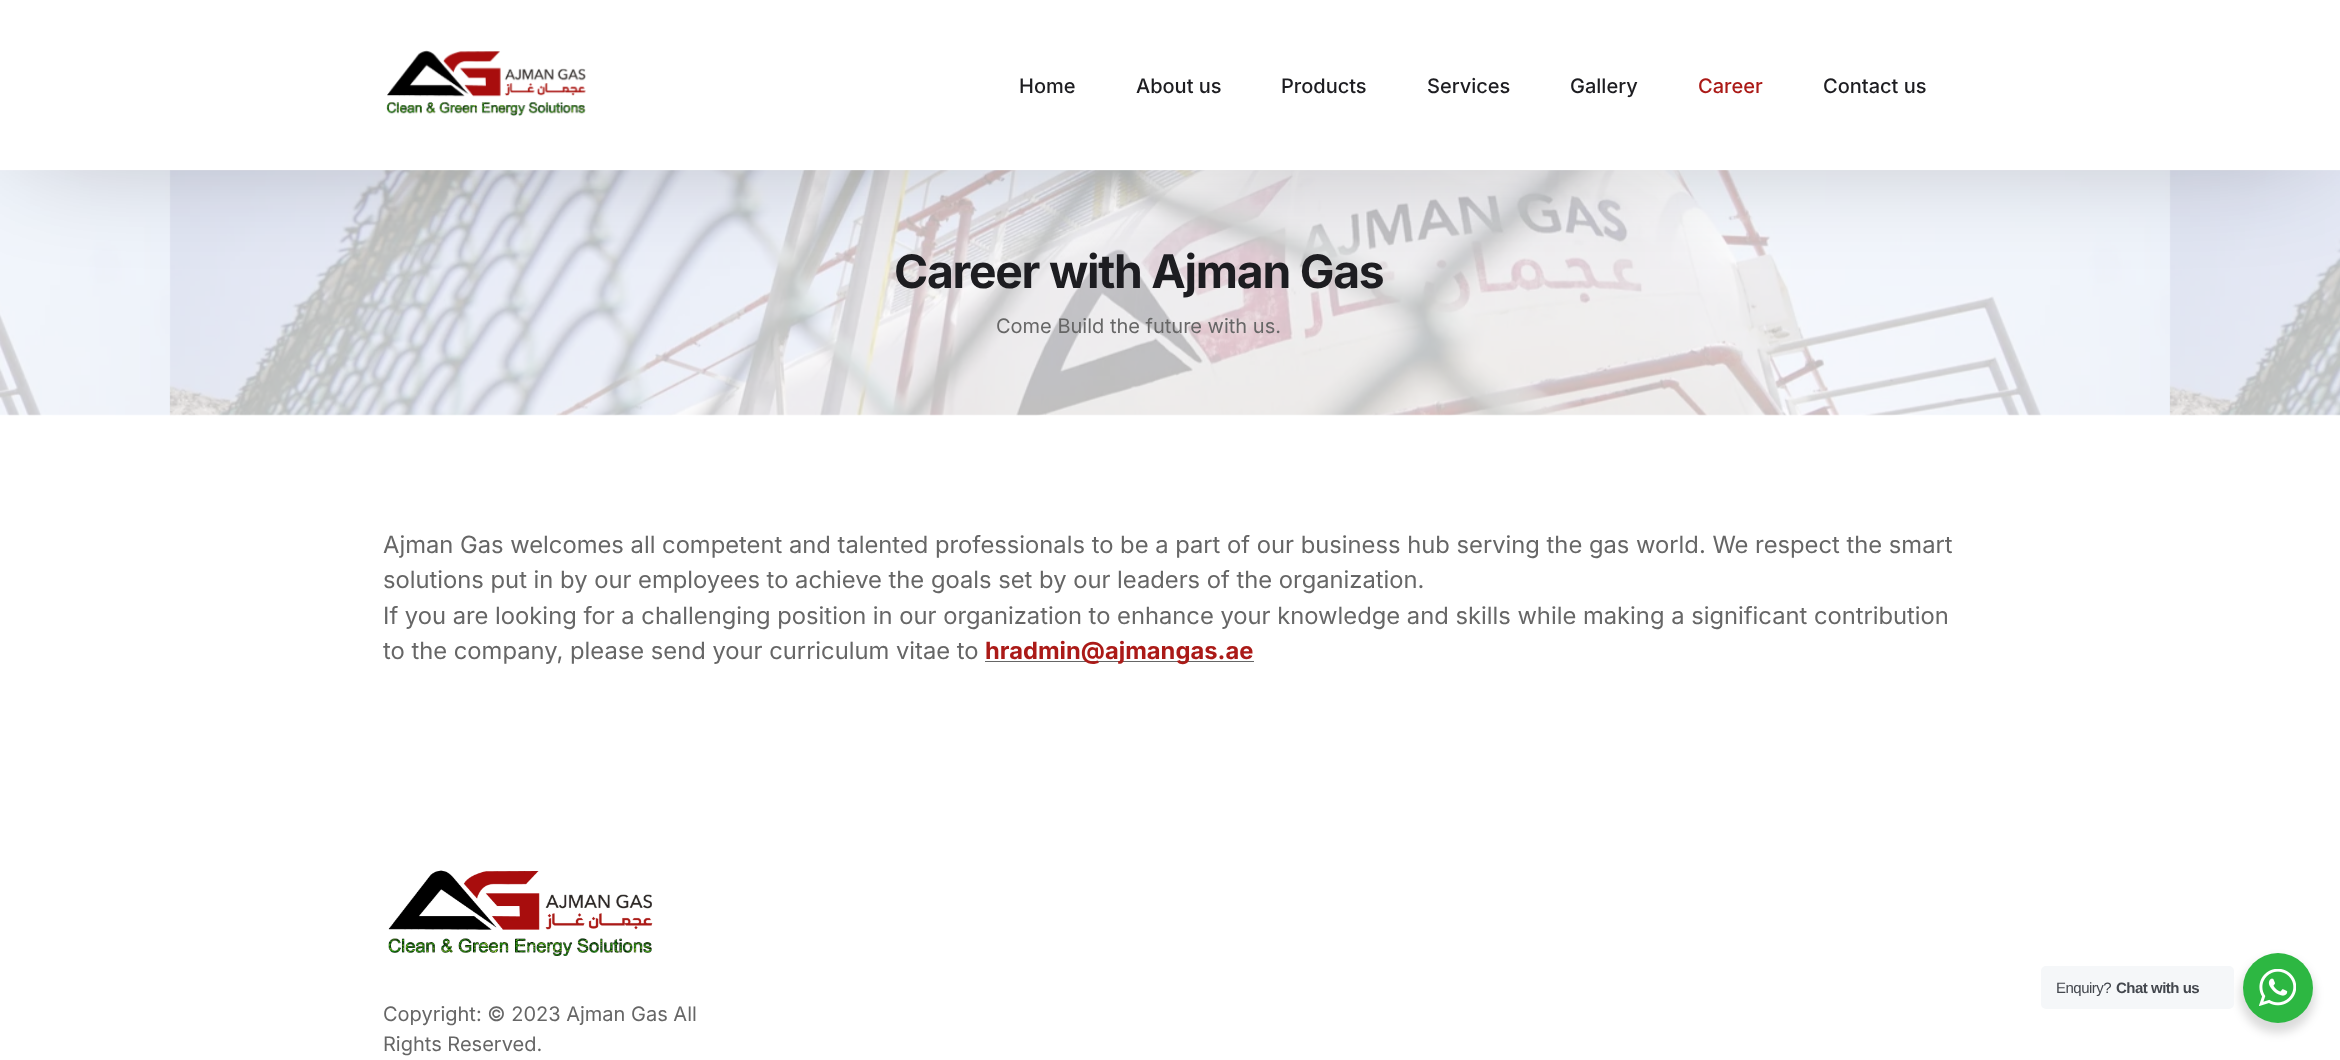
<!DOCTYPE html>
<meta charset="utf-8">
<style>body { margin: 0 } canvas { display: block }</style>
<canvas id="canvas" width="2340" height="1060"></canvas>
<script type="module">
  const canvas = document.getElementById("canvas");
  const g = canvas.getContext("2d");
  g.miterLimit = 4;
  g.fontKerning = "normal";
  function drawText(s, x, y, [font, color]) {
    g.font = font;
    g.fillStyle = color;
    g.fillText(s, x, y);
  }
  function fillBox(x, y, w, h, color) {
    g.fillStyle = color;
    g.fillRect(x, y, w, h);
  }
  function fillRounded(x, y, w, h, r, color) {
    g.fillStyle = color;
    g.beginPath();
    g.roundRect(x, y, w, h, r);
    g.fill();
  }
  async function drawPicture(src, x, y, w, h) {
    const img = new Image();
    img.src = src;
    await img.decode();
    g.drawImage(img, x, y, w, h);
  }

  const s1 = ["500 20px Inter", "#1D1D21"];
  const s2 = ["500 20px Inter", "#AB1A17"];
  const s3 = ["bold 46.25px Inter", "#1D1D21"];
  const s4 = ["20px Inter", "#666666"];
  const s5 = ["23.75px Inter", "#666666"];
  const s6 = ["bold 23.75px Inter", "#AB1A17"];
  const s7 = ["15px Liberation Sans", "#43474E"];
  const s8 = ["bold 15px Liberation Sans", "#43474E"];

  fillBox(0, 0, 2340, 1060, "#FFFFFF");
  await drawPicture("pic2.png", 0, 170, 2340, 246);
  g.fillStyle = "rgba(0, 0, 0, 0.25)";
  g.filter = "blur(56px)";
  g.beginPath();
  g.rect(23, 29, 2290, 120);
  g.fill();
  g.filter = "none";
  fillBox(0, 0, 2340, 170, "#FFFFFF");
  await drawPicture("pic1.png", 386, 50, 200, 66);
  drawText("Home", 1019, 93, s1);
  drawText("About us", 1136, 93, s1);
  drawText("Products", 1281, 93, s1);
  drawText("Services", 1427, 93, s1);
  drawText("Gallery", 1570, 93, s1);
  drawText("Career", 1698, 93, s2);
  drawText("Contact us", 1823, 93, s1);
  g.letterSpacing = "-1.25px";
  drawText("Career with Ajman Gas", 894, 288, s3);
  g.letterSpacing = "0px";
  drawText("Come Build the future with us.", 996, 333, s4);
  drawText("Ajman Gas welcomes all competent and talented professionals to be a part of our business hub serving the gas world. We respect the smart", 383, 553, s5);
  drawText("solutions put in by our employees to achieve the goals set by our leaders of the organization.", 383, 588, s5);
  drawText("If you are looking for a challenging position in our organization to enhance your knowledge and skills while making a significant contribution", 383, 624, s5);
  drawText("to the company, please send your curriculum vitae to", 383, 659, s5);
  fillBox(985, 661, 269, 1, "#666666");
  drawText("hradmin@ajmangas.ae", 985, 659, s6);
  await drawPicture("pic3.png", 388, 870, 265, 86);
  drawText("Copyright: © 2023 Ajman Gas All", 383, 1021, s4);
  drawText("Rights Reserved.", 383, 1051, s4);
  g.fillStyle = "rgba(0, 0, 0, 0.14)";
  g.filter = "blur(5px)";
  g.beginPath();
  g.roundRect(2240, 958, 75, 75, 37.5);
  g.fill();
  g.filter = "none";
  fillRounded(2041, 966, 193, 43, 5, "#F5F7F9");
  g.letterSpacing = "-0.5px";
  drawText("Enquiry?", 2056, 993, s7);
  drawText("Chat with us", 2116, 993, s8);
  g.fillStyle = "#2DB742";
  g.beginPath();
  g.arc(2278, 988, 35, 0, Math.PI * 2);
  g.fill();
  await drawPicture("pic4.png", 2259, 969, 37, 37);
</script>
